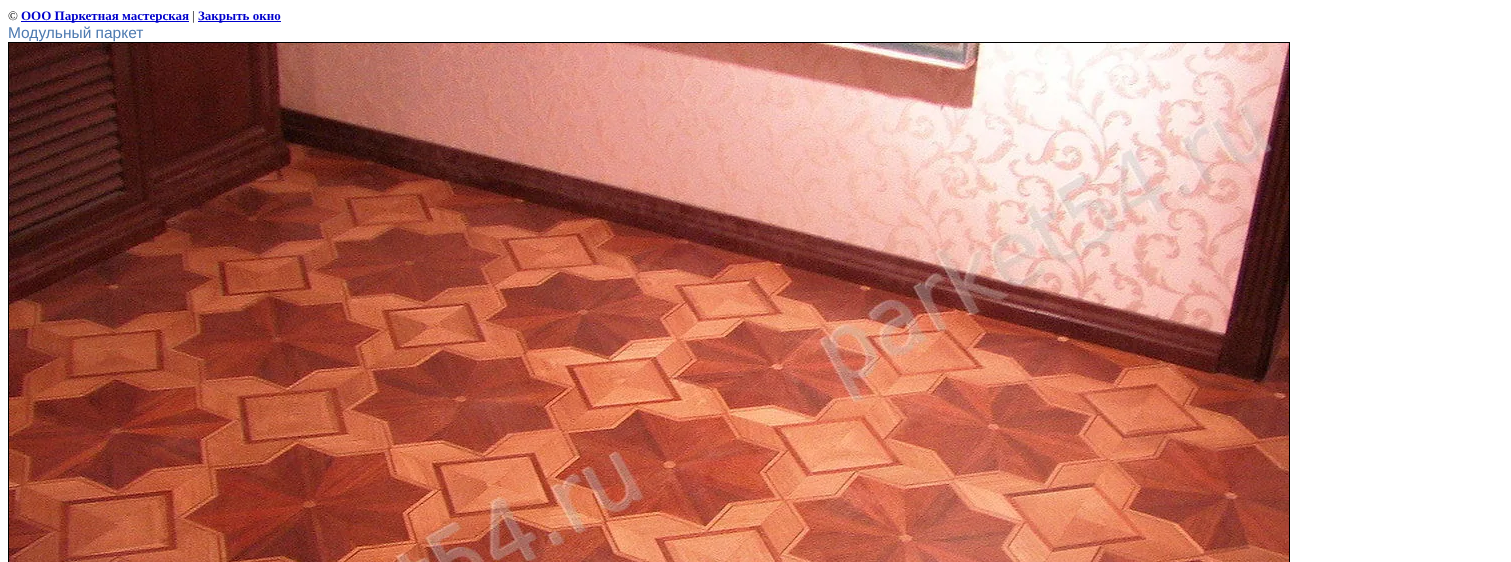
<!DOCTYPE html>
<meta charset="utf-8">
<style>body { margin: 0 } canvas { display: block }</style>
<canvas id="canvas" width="1511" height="562"></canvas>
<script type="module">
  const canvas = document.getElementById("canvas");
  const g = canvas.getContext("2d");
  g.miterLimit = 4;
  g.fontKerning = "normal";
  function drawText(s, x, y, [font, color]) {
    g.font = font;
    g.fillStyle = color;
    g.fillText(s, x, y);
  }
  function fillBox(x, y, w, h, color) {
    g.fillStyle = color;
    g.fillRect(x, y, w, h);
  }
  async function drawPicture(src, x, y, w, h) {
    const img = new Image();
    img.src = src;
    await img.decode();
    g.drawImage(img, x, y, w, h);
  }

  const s1 = ["13px Liberation Serif", "#000000"];
  const s2 = ["bold 13px Liberation Serif", "#0000CC"];
  const s3 = ["15.5px Liberation Sans", "#4D7AB0"];

  fillBox(0, 0, 1511, 562, "#FFFFFF");
  drawText("©", 8, 20, s1);
  fillBox(21, 21, 168, 1, "#0000CC");
  drawText("ООО Паркетная мастерская", 21, 20, s2);
  drawText("|", 192, 20, s1);
  fillBox(198, 21, 83, 1, "#0000CC");
  drawText("Закрыть окно", 198, 20, s2);
  drawText("Модульный паркет", 8, 38, s3);
  g.strokeStyle = "#000000";
  g.strokeRect(8.5, 42.5, 1281, 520);
  await drawPicture("pic1.png", 9, 43, 1280, 519);
</script>
